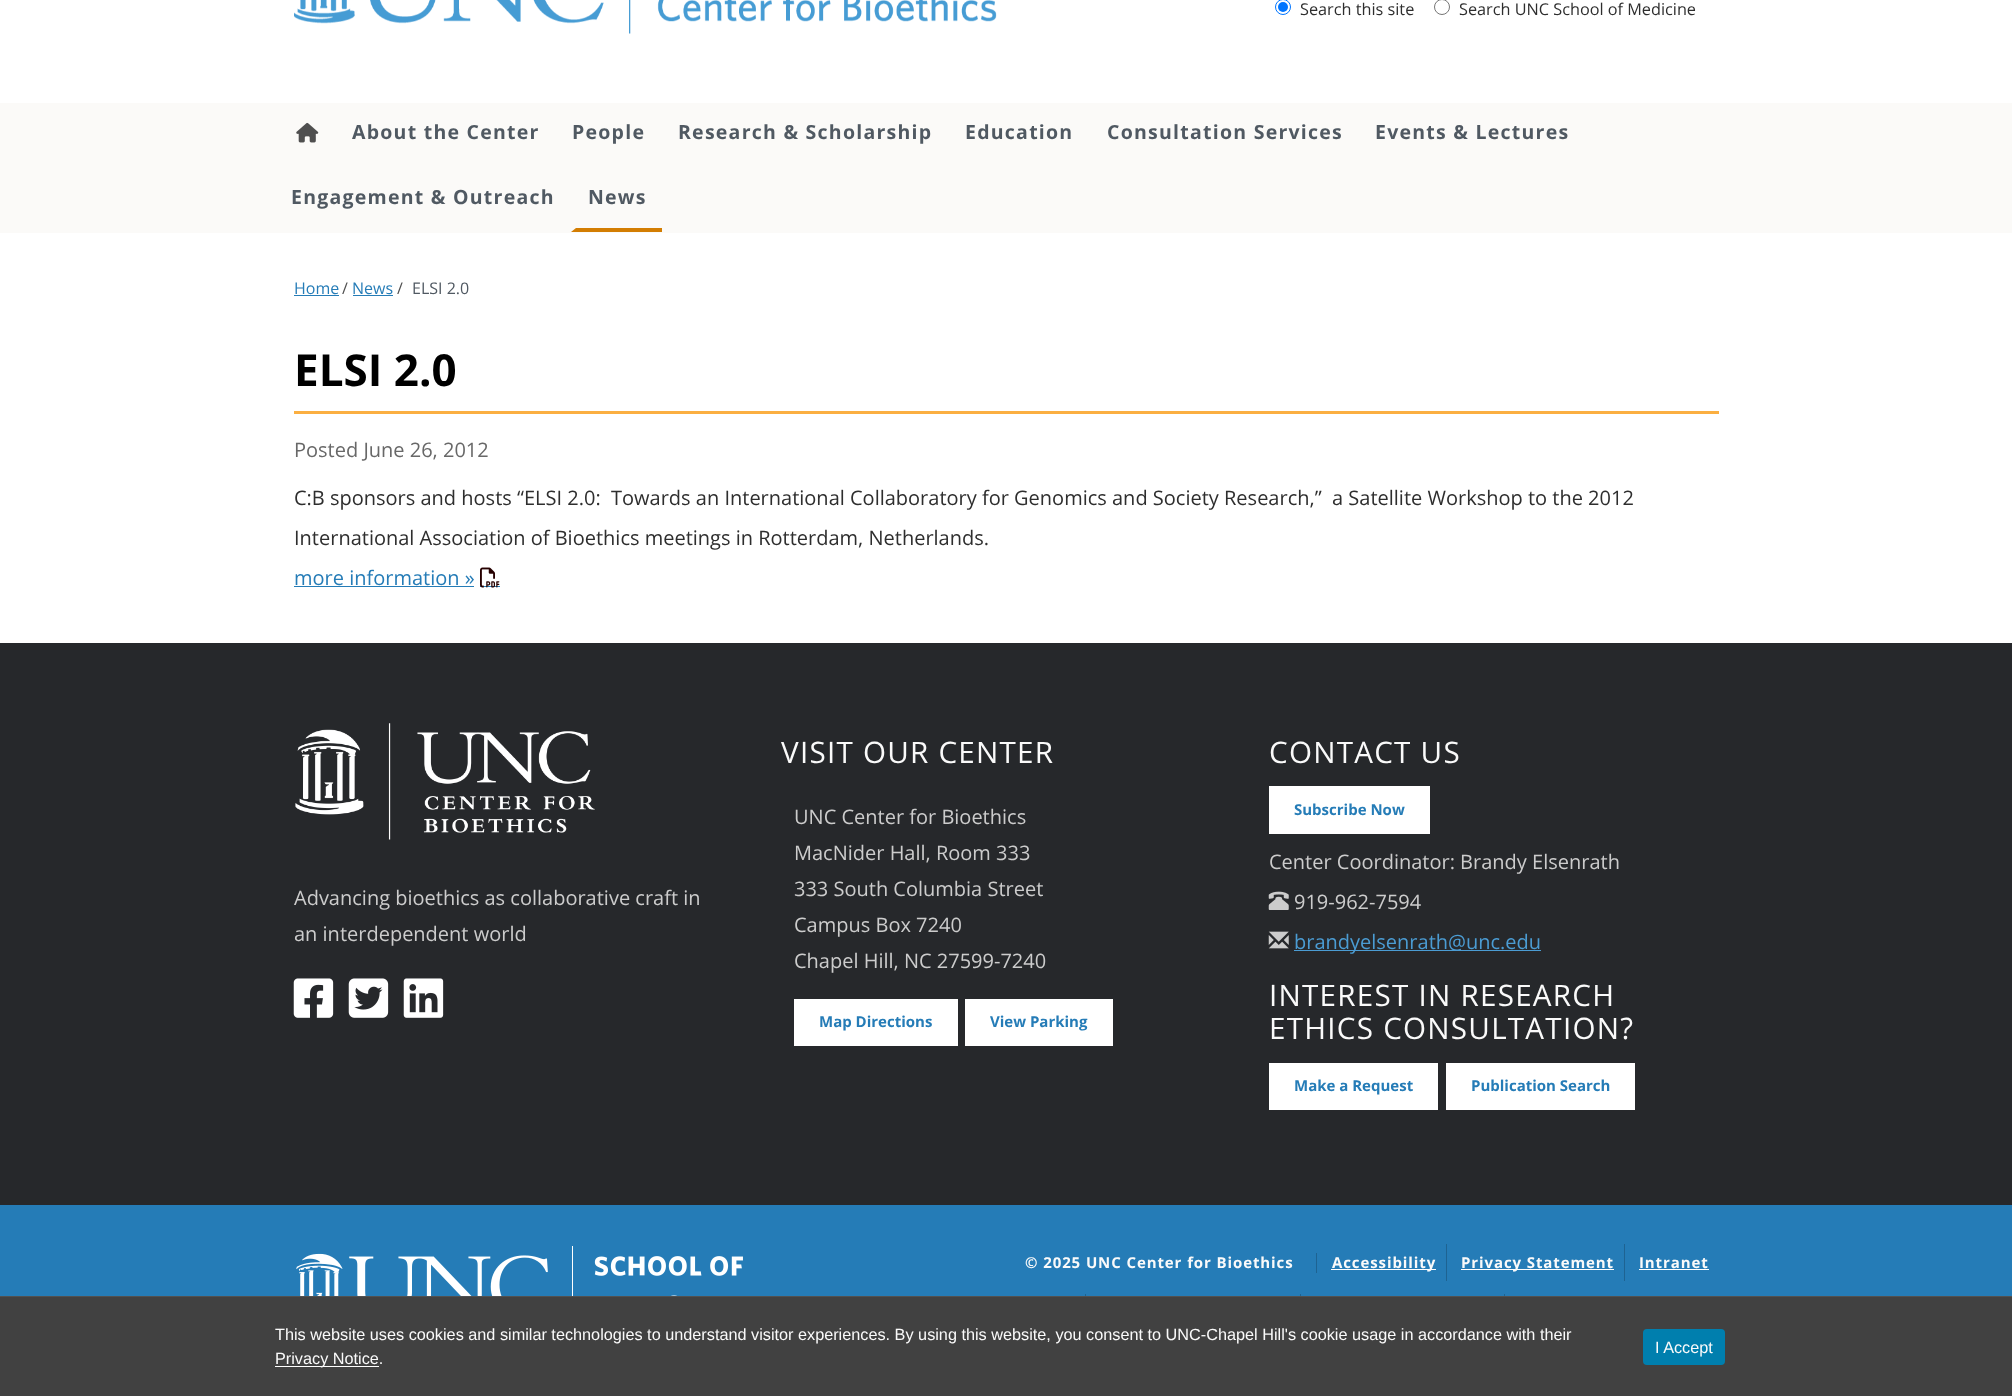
<!DOCTYPE html>
<meta charset="utf-8">
<style>body { margin: 0 } canvas { display: block }</style>
<canvas id="canvas" width="2012" height="1396"></canvas>
<script type="module">
  const canvas = document.getElementById("canvas");
  const g = canvas.getContext("2d");
  g.miterLimit = 4;
  g.fontKerning = "normal";
  function drawText(s, x, y, [font, color]) {
    g.font = font;
    g.fillStyle = color;
    g.fillText(s, x, y);
  }
  function fillBox(x, y, w, h, color) {
    g.fillStyle = color;
    g.fillRect(x, y, w, h);
  }
  function fillRounded(x, y, w, h, r, color) {
    g.fillStyle = color;
    g.beginPath();
    g.roundRect(x, y, w, h, r);
    g.fill();
  }
  async function drawPicture(src, x, y, w, h) {
    const img = new Image();
    img.src = src;
    await img.decode();
    g.drawImage(img, x, y, w, h);
  }

  const s1 = ["16.25px Open Sans", "#2E2E2E"];
  const s2 = ["bold 19.5px Open Sans", "#505962"];
  const s3 = ["16px Open Sans", "#257CB7"];
  const s4 = ["16px Open Sans", "#4F4F4F"];
  const s5 = ["16px Open Sans", "#505962"];
  const s6 = ["bold 44px Open Sans", "#000000"];
  const s7 = ["20px Open Sans", "#686868"];
  const s8 = ["20px Open Sans", "#2E2E2E"];
  const s9 = ["20px Open Sans", "#257CB7"];
  const s10 = ["20px Open Sans", "#CCCCCC"];
  const s11 = ["29.6px Open Sans", "#FAFAFA"];
  const s12 = ["bold 15px Open Sans", "#257CB7"];
  const s13 = ["20px Open Sans", "#4B9CD3"];
  const s14 = ["bold 15px Open Sans", "#FAFAFA"];
  const s15 = ["16.25px Liberation Sans", "#FAFAFA"];

  fillBox(0, 0, 2012, 1396, "#FFFFFF");
  await drawPicture("pic1.png", 294, 0, 703, 34);
  g.beginPath();
  g.arc(1283, 7, 7.5, 0, Math.PI * 2);
  g.strokeStyle = "#0075FF";
  g.stroke();
  g.fillStyle = "#0075FF";
  g.beginPath();
  g.arc(1283, 7, 5, 0, Math.PI * 2);
  g.fill();
  drawText("Search this site", 1300, 15, s1);
  g.beginPath();
  g.arc(1442, 7, 7.5, 0, Math.PI * 2);
  g.strokeStyle = "#767676";
  g.stroke();
  drawText("Search UNC School of Medicine", 1459, 15, s1);
  g.fillStyle = "rgba(189, 189, 189, 0.75)";
  g.filter = "blur(0.5px)";
  g.beginPath();
  g.rect(-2, 103, 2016, 130);
  g.fill();
  g.filter = "none";
  fillBox(0, 103, 2012, 130, "#FBFAF8");
  await drawPicture("pic2.png", 296, 122, 23, 21);
  g.letterSpacing = "1.25px";
  drawText("About the Center", 352, 139, s2);
  drawText("People", 572, 139, s2);
  drawText("Research & Scholarship", 678, 139, s2);
  drawText("Education", 965, 139, s2);
  drawText("Consultation Services", 1107, 139, s2);
  drawText("Events & Lectures", 1375, 139, s2);
  drawText("Engagement & Outreach", 291, 204, s2);
  g.fillStyle = "#D37D02";
  g.beginPath();
  g.moveTo(662, 232);
  g.lineTo(571, 232);
  g.lineTo(576, 228);
  g.lineTo(662, 228);
  g.closePath();
  g.fill();
  drawText("News", 588, 204, s2);
  g.letterSpacing = "0px";
  drawText("Home", 294, 294, s3);
  fillBox(294, 295, 45, 1, "#257CB7");
  drawText("/", 342, 294, s4);
  drawText("News", 352, 294, s3);
  fillBox(353, 295, 40, 1, "#257CB7");
  drawText("/", 397, 294, s4);
  drawText("ELSI 2.0", 412, 294, s5);
  fillBox(294, 411, 1425, 3, "#FBAF41");
  drawText("ELSI 2.0", 294, 386, s6);
  drawText("Posted June 26, 2012", 294, 457, s7);
  drawText("C:B sponsors and hosts “ELSI 2.0:  Towards an International Collaboratory for Genomics and Society Research,”  a Satellite Workshop to the 2012", 294, 505, s8);
  drawText("International Association of Bioethics meetings in Rotterdam, Netherlands.", 294, 545, s8);
  drawText("more information »", 294, 585, s9);
  fillBox(294, 586, 180, 1, "#257CB7");
  fillBox(480, 586, 20, 1, "#257CB7");
  await drawPicture("pic3.png", 480, 567, 20, 21);
  fillBox(0, 643, 2012, 562, "#26282B");
  await drawPicture("pic4.png", 295, 723, 300, 117);
  drawText("Advancing bioethics as collaborative craft in", 294, 905, s10);
  drawText("an interdependent world", 294, 941, s10);
  await drawPicture("pic5.png", 293, 978, 41, 40);
  await drawPicture("pic6.png", 348, 978, 41, 40);
  await drawPicture("pic7.png", 403, 978, 41, 40);
  g.letterSpacing = "1.25px";
  drawText("VISIT OUR CENTER", 781, 763, s11);
  g.letterSpacing = "0px";
  drawText("UNC Center for Bioethics", 794, 824, s10);
  drawText("MacNider Hall, Room 333", 794, 860, s10);
  drawText("333 South Columbia Street", 794, 896, s10);
  drawText("Campus Box 7240", 794, 932, s10);
  drawText("Chapel Hill, NC 27599-7240", 794, 968, s10);
  fillBox(794, 999, 164, 47, "#FFFFFF");
  drawText("Map Directions", 819, 1027, s12);
  fillBox(965, 999, 148, 47, "#FFFFFF");
  drawText("View Parking", 990, 1027, s12);
  g.letterSpacing = "1.25px";
  drawText("CONTACT US", 1269, 763, s11);
  fillBox(1269, 786, 161, 48, "#FFFFFF");
  g.letterSpacing = "0px";
  drawText("Subscribe Now", 1294, 815, s12);
  drawText("Center Coordinator: Brandy Elsenrath", 1269, 869, s10);
  await drawPicture("pic8.png", 1268, 891, 21, 19);
  drawText("919-962-7594", 1294, 909, s10);
  await drawPicture("pic9.png", 1268, 931, 21, 18);
  fillBox(1294, 950, 247, 1, "#4B9CD3");
  drawText("brandyelsenrath@unc.edu", 1294, 949, s13);
  g.letterSpacing = "1.25px";
  drawText("INTEREST IN RESEARCH", 1269, 1006, s11);
  drawText("ETHICS CONSULTATION?", 1269, 1039, s11);
  fillBox(1269, 1063, 169, 47, "#FFFFFF");
  g.letterSpacing = "0px";
  drawText("Make a Request", 1294, 1091, s12);
  fillBox(1446, 1063, 189, 47, "#FFFFFF");
  drawText("Publication Search", 1471, 1091, s12);
  fillBox(0, 1205, 2012, 91, "#257CB7");
  await drawPicture("pic10.png", 296, 1246, 447, 50);
  fillBox(1316, 1253, 1, 20, "#1E6392");
  g.letterSpacing = "0.9px";
  drawText("© 2025 UNC Center for Bioethics", 1025, 1268, s14);
  fillBox(1446, 1244, 1, 37, "#1E6392");
  fillBox(1331, 1269, 105, 1, "#FFFFFF");
  drawText("Accessibility", 1332, 1268, s14);
  fillBox(1624, 1244, 1, 37, "#1E6392");
  fillBox(1461, 1269, 153, 1, "#FFFFFF");
  drawText("Privacy Statement", 1461, 1268, s14);
  drawText("Intranet", 1639, 1268, s14);
  fillBox(1639, 1269, 70, 1, "#FFFFFF");
  fillBox(1085, 1294, 1, 2, "#1E6392");
  fillBox(1300, 1294, 1, 2, "#1E6392");
  fillBox(1504, 1294, 1, 2, "#1E6392");
  fillBox(0, 1297, 2012, 99, "#414141");
  fillBox(0, 1296, 2012, 1, "#515151");
  g.letterSpacing = "0px";
  drawText("This website uses cookies and similar technologies to understand visitor experiences. By using this website, you consent to UNC-Chapel Hill's cookie usage in accordance with their", 275, 1340, s15);
  fillBox(275, 1366, 104, 1, "#FFFFFF");
  drawText("Privacy Notice.", 275, 1364, s15);
  fillRounded(1643, 1329, 82, 36, 4, "#007FAE");
  drawText("I Accept", 1655, 1353, s15);
</script>
